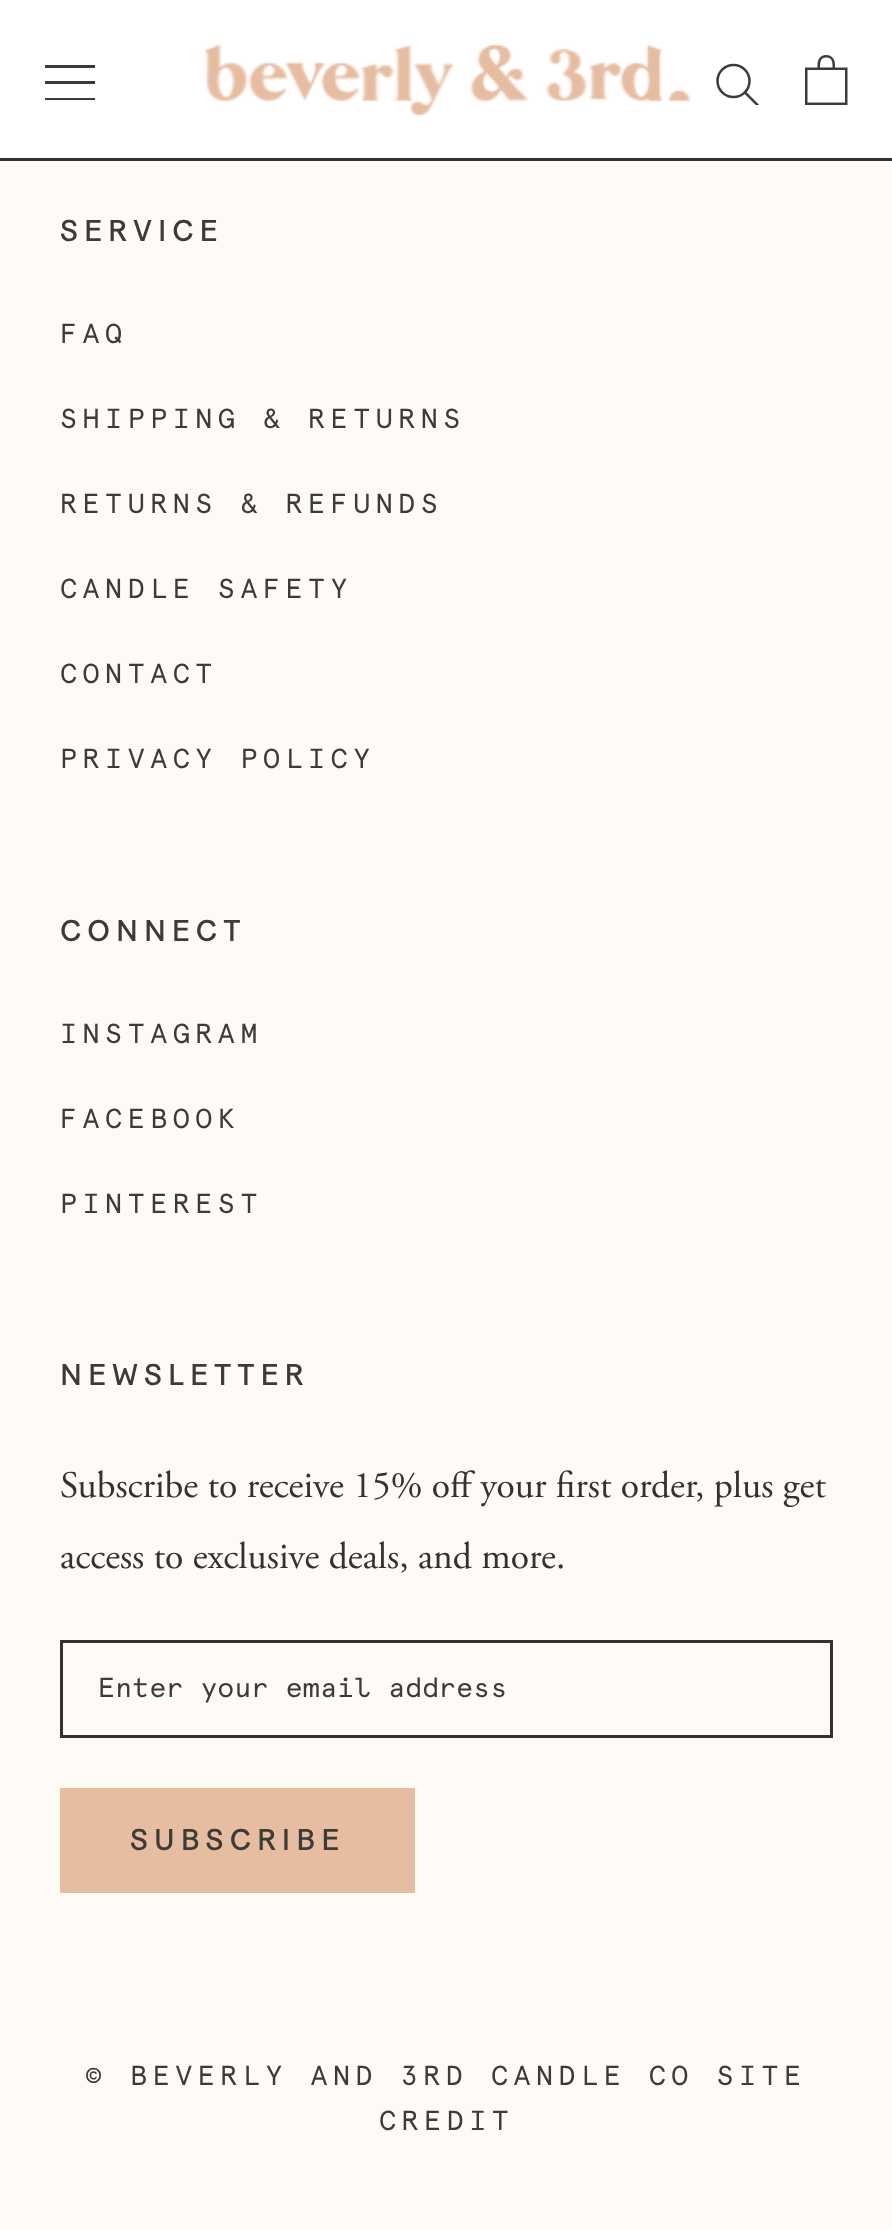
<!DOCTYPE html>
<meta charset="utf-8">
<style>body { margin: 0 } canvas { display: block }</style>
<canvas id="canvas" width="892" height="2230"></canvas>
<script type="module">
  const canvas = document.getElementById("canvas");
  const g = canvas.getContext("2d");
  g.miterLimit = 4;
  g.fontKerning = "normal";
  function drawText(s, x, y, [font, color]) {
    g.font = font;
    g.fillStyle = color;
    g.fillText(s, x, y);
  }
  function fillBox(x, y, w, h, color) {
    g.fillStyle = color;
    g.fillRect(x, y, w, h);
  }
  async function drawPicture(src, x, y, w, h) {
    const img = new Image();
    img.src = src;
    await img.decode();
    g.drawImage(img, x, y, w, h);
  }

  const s1 = ["30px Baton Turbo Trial", "#3D3B36"];
  const s2 = ["27.5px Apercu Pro", "#3D3B36"];
  const s3 = ["37.5px Adobe Garamond", "#323232"];

  fillBox(0, 0, 892, 2230, "#FEFAF6");
  fillBox(0, 0, 892, 158, "#FFFFFF");
  fillBox(0, 158, 892, 3, "#323232");
  g.fillStyle = "#3D3B36";
  g.beginPath();
  g.moveTo(45, 100);
  g.lineTo(45, 98);
  g.lineTo(95, 98);
  g.lineTo(95, 100);
  g.closePath();
  g.moveTo(45, 81);
  g.lineTo(95, 81);
  g.lineTo(95, 84);
  g.lineTo(45, 84);
  g.closePath();
  g.moveTo(45, 65);
  g.lineTo(95, 65);
  g.lineTo(95, 68);
  g.lineTo(45, 68);
  g.closePath();
  g.fill();
  await drawPicture("pic1.png", 204, 43, 488, 74);
  g.save();
  g.beginPath();
  g.rect(715, 63, 45, 42);
  g.clip();
  g.beginPath();
  g.moveTo(757.5, 105);
  g.lineTo(745, 92.5);
  g.strokeStyle = "#3D3B36";
  g.lineWidth = 2.5;
  g.lineCap = "square";
  g.stroke();
  g.restore();
  g.beginPath();
  g.arc(733.5, 81, 16, 0, Math.PI * 2);
  g.strokeStyle = "#3D3B36";
  g.lineWidth = 2.5;
  g.stroke();
  await drawPicture("pic2.png", 805, 55, 43, 50);
  g.letterSpacing = "6px";
  drawText("SERVICE", 60, 241, s1);
  g.letterSpacing = "5.5px";
  drawText("FAQ", 60, 343, s2);
  drawText("SHIPPING & RETURNS", 60, 428, s2);
  drawText("RETURNS & REFUNDS", 60, 513, s2);
  drawText("CANDLE SAFETY", 60, 598, s2);
  drawText("CONTACT", 60, 683, s2);
  drawText("PRIVACY POLICY", 60, 768, s2);
  g.letterSpacing = "6px";
  drawText("CONNECT", 60, 941, s1);
  g.letterSpacing = "5.5px";
  drawText("INSTAGRAM", 60, 1043, s2);
  drawText("FACEBOOK", 60, 1128, s2);
  drawText("PINTEREST", 60, 1213, s2);
  g.letterSpacing = "6px";
  drawText("NEWSLETTER", 60, 1385, s1);
  g.letterSpacing = "0px";
  drawText("Subscribe to receive 15% off your first order, plus get", 60, 1497, s3);
  drawText("access to exclusive deals, and more.", 60, 1568, s3);
  g.strokeStyle = "#323232";
  g.lineWidth = 3;
  g.strokeRect(61.5, 1641.5, 770, 95);
  drawText("Enter your email address", 98, 1697, s2);
  fillBox(60, 1788, 355, 105, "#E7BDA1");
  g.letterSpacing = "6px";
  drawText("SUBSCRIBE", 130, 1850, s1);
  g.letterSpacing = "5.5px";
  drawText("© BEVERLY AND 3RD CANDLE CO SITE", 85, 2085, s2);
  drawText("CREDIT", 379, 2130, s2);
</script>
